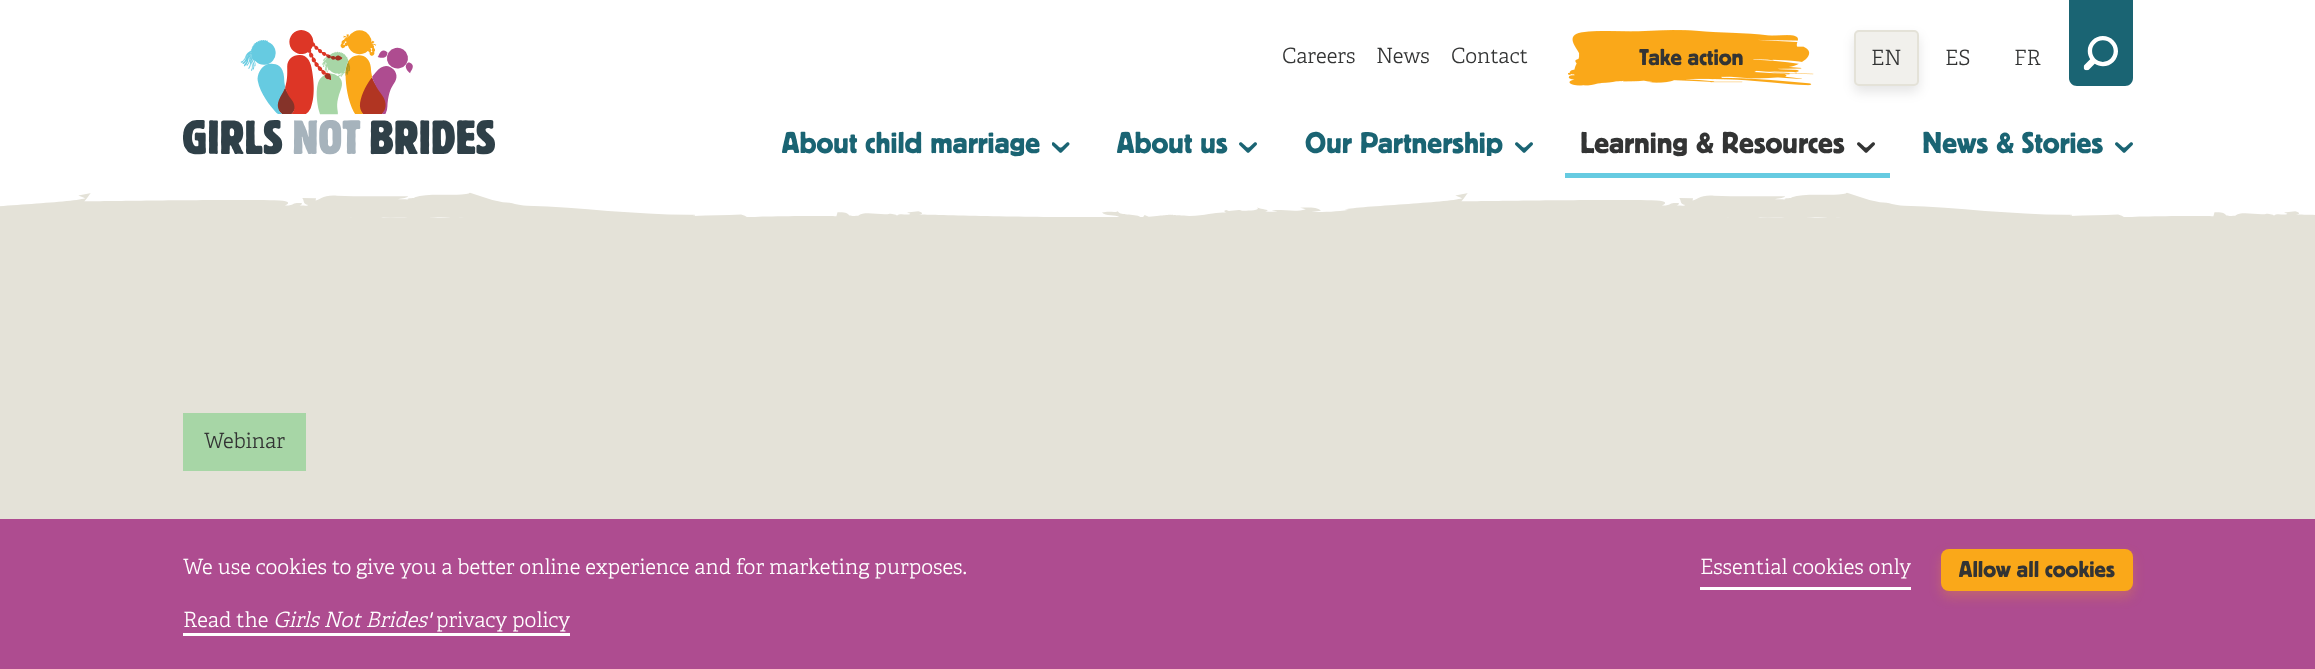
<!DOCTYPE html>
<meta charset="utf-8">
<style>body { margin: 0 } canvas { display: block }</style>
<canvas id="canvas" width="2315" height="669"></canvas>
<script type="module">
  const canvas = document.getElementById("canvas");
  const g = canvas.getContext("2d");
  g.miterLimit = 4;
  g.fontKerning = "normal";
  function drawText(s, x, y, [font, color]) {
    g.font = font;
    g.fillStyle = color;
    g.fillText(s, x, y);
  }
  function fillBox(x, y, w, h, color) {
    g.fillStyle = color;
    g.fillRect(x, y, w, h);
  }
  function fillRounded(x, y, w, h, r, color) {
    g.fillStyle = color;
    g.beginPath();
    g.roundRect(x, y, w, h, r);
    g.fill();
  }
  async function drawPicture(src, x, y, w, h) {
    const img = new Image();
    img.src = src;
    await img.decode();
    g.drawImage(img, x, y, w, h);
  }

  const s1 = ["300 21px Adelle", "#333434"];
  const s2 = ["500 24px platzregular", "#333434"];
  const s3 = ["500 31.5px platzregular", "#1A6473"];
  const s4 = ["500 31.5px platzregular", "#333434"];
  const s5 = ["300 21px Adelle", "#FFFFFF"];
  const s6 = ["italic 300 21px Adelle", "#FFFFFF"];

  fillBox(0, 0, 2315, 669, "#E4E2D8");
  fillBox(0, 0, 2315, 173, "#FFFFFF");
  await drawPicture("pic1.png", 183, 30, 312, 125);
  drawText("Careers", 1282, 63, s1);
  drawText("News", 1376, 63, s1);
  drawText("Contact", 1451, 63, s1);
  await drawPicture("pic2.png", 1568, 30, 246, 56);
  drawText("Take action", 1639, 65, s2);
  g.fillStyle = "rgba(0, 0, 0, 0.1)";
  g.filter = "blur(6px)";
  g.beginPath();
  g.roundRect(1854, 36, 65, 56, 5);
  g.fill();
  g.filter = "none";
  g.fillStyle = "#F1F0EC";
  g.beginPath();
  g.roundRect(1855, 31, 63, 54, 4);
  g.fill();
  g.strokeStyle = "#E4E2D8";
  g.lineWidth = 2;
  g.stroke();
  drawText("EN", 1871, 65, s1);
  drawText("ES", 1945, 65, s1);
  drawText("FR", 2014, 65, s1);
  g.fillStyle = "#1A6473";
  g.beginPath();
  g.moveTo(2069, -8);
  g.lineTo(2133, -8);
  g.lineTo(2133, 78);
  g.bezierCurveTo(2133, 82.5, 2129.5, 86, 2125, 86);
  g.lineTo(2077, 86);
  g.bezierCurveTo(2072.5, 86, 2069, 82.5, 2069, 78);
  g.closePath();
  g.fill();
  await drawPicture("pic3.png", 2083, 36, 35, 35);
  drawText("About child marriage", 782, 153, s3);
  await drawPicture("pic4.png", 1052, 142, 18, 11);
  drawText("About us", 1117, 153, s3);
  await drawPicture("pic5.png", 1239, 142, 18, 11);
  drawText("Our Partnership", 1305, 153, s3);
  await drawPicture("pic5.png", 1515, 142, 18, 11);
  drawText("Learning & Resources", 1580, 153, s4);
  await drawPicture("pic6.png", 1857, 142, 18, 11);
  await drawPicture("pic7.png", 0, 173, 2315, 45);
  fillBox(1565, 173, 325, 5, "#66CBE1");
  drawText("News & Stories", 1922, 153, s3);
  await drawPicture("pic5.png", 2115, 142, 18, 11);
  fillBox(183, 413, 123, 58, "#A7D6A6");
  drawText("Webinar", 204, 448, s1);
  fillBox(0, 519, 2315, 150, "#AE4C90");
  drawText("We use cookies to give you a better online experience and for marketing purposes.", 183, 574, s5);
  drawText("Read the", 183, 627, s5);
  drawText("Girls Not Brides'", 273, 627, s6);
  drawText("privacy policy", 436, 627, s5);
  fillBox(183, 633, 387, 3, "#FFFFFF");
  fillBox(1700, 587, 211, 3, "#FFFFFF");
  drawText("Essential cookies only", 1700, 574, s5);
  g.fillStyle = "rgba(250, 168, 25, 0.25)";
  g.filter = "blur(6px)";
  g.beginPath();
  g.roundRect(1941, 555, 192, 42, 8);
  g.fill();
  g.filter = "none";
  fillRounded(1941, 549, 192, 42, 8, "#FAA819");
  drawText("Allow all cookies", 1959, 577, s2);
</script>
